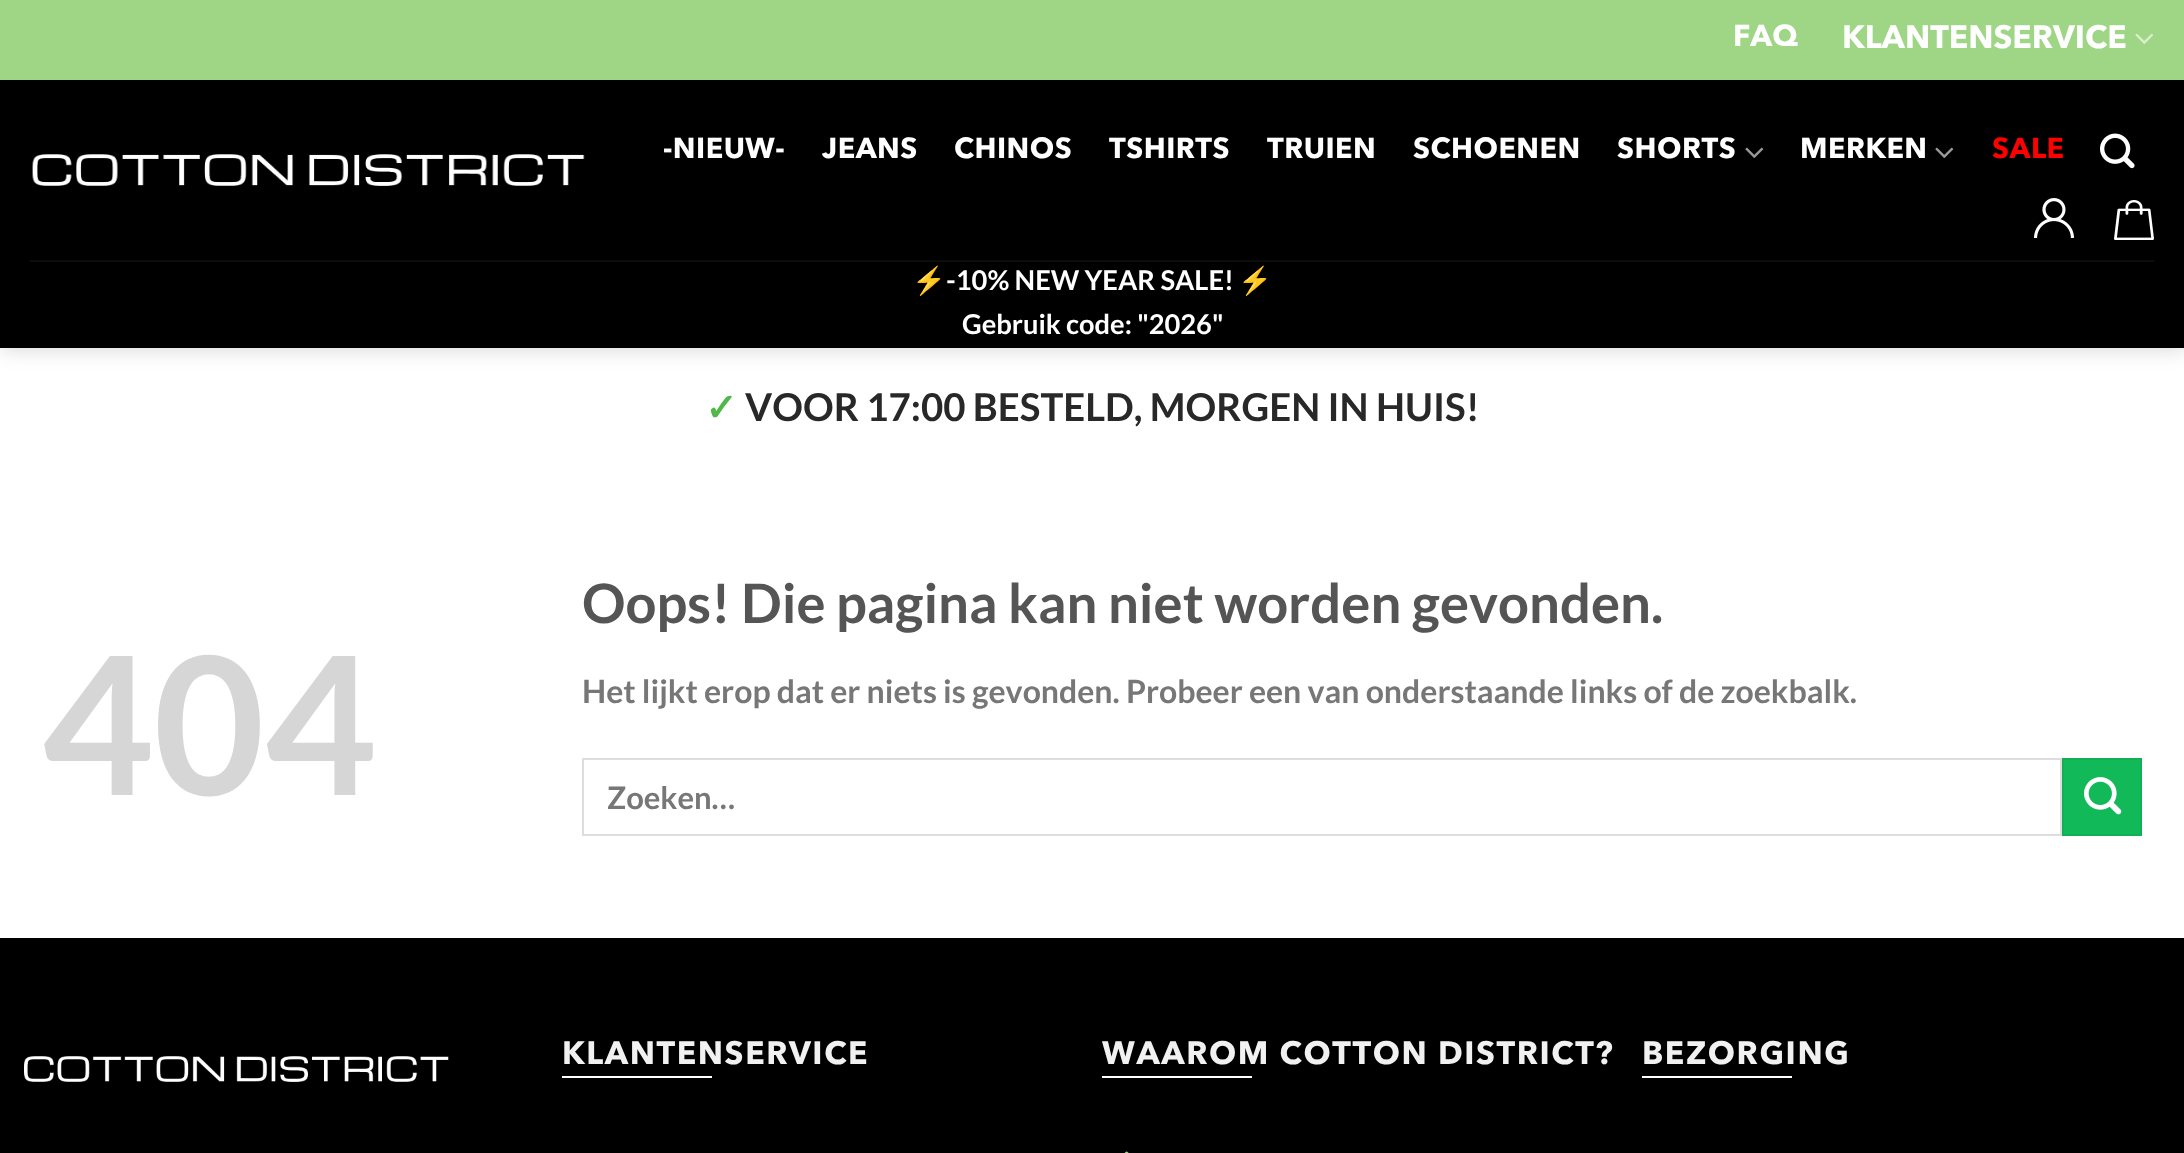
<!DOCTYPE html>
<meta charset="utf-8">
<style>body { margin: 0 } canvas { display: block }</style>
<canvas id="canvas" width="2184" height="1153"></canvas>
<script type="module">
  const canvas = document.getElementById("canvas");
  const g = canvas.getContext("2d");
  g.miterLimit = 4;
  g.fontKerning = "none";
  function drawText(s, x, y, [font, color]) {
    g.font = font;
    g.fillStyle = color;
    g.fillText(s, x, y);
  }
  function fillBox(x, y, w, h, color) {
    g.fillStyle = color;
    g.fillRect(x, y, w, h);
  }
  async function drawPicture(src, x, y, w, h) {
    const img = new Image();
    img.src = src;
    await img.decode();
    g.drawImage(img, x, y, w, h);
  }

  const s1 = ["bold 30px Avenir Next", "#FFFFFF"];
  const s2 = ["bold 32px Avenir Next", "#FFFFFF"];
  const s3 = ["bold 28.75px Avenir Next", "#FFFFFF"];
  const s4 = ["bold 28.75px Avenir Next", "#FF0000"];
  const s5 = ["bold 27.25px Noto Color Emoji", "#FFFFFF"];
  const s6 = ["bold 27.25px Lato", "#FFFFFF"];
  const s7 = ["bold 38.4px DejaVu Sans", "#50B848"];
  const s8 = ["bold 38.4px Lato", "#282828"];
  const s9 = ["bold 192px Lato", "#D6D6D6"];
  const s10 = ["bold 54.4px Lato", "#555555"];
  const s11 = ["bold 32px Lato", "#777777"];
  const s12 = ["bold 31px Lato", "#777777"];
  const s13 = ["bold 32px Avenir Next", "#F1F1F1"];

  fillBox(0, 0, 2184, 1153, "#FFFFFF");
  g.fillStyle = "rgba(0, 0, 0, 0.15)";
  g.filter = "blur(10px)";
  g.beginPath();
  g.rect(2, 2, 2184, 348);
  g.fill();
  g.filter = "none";
  fillBox(0, 0, 2184, 80, "#9ED685");
  drawText("FAQ", 1733, 46, s1);
  drawText("KLANTENSERVICE", 1842, 48, s2);
  await drawPicture("pic1.png", 2135, 33, 19, 11);
  fillBox(0, 80, 2184, 268, "#000000");
  g.letterSpacing = "0.5px";
  drawText("-NIEUW-", 663, 158, s3);
  drawText("JEANS", 822, 158, s3);
  drawText("CHINOS", 954, 158, s3);
  drawText("TSHIRTS", 1109, 158, s3);
  drawText("TRUIEN", 1267, 158, s3);
  drawText("SCHOENEN", 1413, 158, s3);
  drawText("SHORTS", 1617, 158, s3);
  await drawPicture("pic2.png", 1745, 147, 19, 11);
  drawText("MERKEN", 1800, 158, s3);
  await drawPicture("pic2.png", 1935, 147, 19, 11);
  drawText("SALE", 1992, 158, s4);
  await drawPicture("pic3.png", 2100, 133, 35, 36);
  await drawPicture("pic4.png", 2034, 198, 40, 40);
  await drawPicture("pic5.png", 2114, 200, 40, 40);
  await drawPicture("pic6.png", 32, 154, 553, 32);
  fillBox(30, 260, 2124, 2, "#0C0C0C");
  g.letterSpacing = "0px";
  drawText("⚡", 912, 290, s5);
  drawText("-10% NEW YEAR SALE!", 946, 290, s6);
  drawText("⚡", 1238, 290, s5);
  drawText("Gebruik code: \"2026\"", 962, 334, s6);
  drawText("✓", 705, 421, s7);
  drawText("VOOR 17:00 BESTELD, MORGEN IN HUIS!", 745, 421, s8);
  drawText("404", 42, 795, s9);
  drawText("Oops! Die pagina kan niet worden gevonden.", 582, 623, s10);
  drawText("Het lijkt erop dat er niets is gevonden. Probeer een van onderstaande links of de zoekbalk.", 582, 703, s11);
  g.strokeStyle = "#DDDDDD";
  g.lineWidth = 2;
  g.strokeRect(583, 759, 1478, 76);
  drawText("Zoeken…", 607, 809, s12);
  g.fillStyle = "#12B958";
  g.beginPath();
  g.rect(2063, 759, 78, 76);
  g.fill();
  g.strokeStyle = "#11B054";
  g.stroke();
  await drawPicture("pic7.png", 2084, 777, 38, 38);
  fillBox(0, 938, 2184, 215, "#000000");
  g.letterSpacing = "1.6px";
  drawText("KLANTENSERVICE", 562, 1064, s13);
  fillBox(562, 1076, 150, 2, "#FFFFFF");
  drawText("WAAROM COTTON DISTRICT?", 1102, 1064, s13);
  fillBox(1102, 1076, 150, 2, "#FFFFFF");
  await drawPicture("pic8.png", 1124, 1151, 5, 2);
  drawText("BEZORGING", 1642, 1064, s13);
  fillBox(1642, 1076, 150, 2, "#FFFFFF");
  await drawPicture("pic9.png", 24, 1056, 425, 26);
</script>
